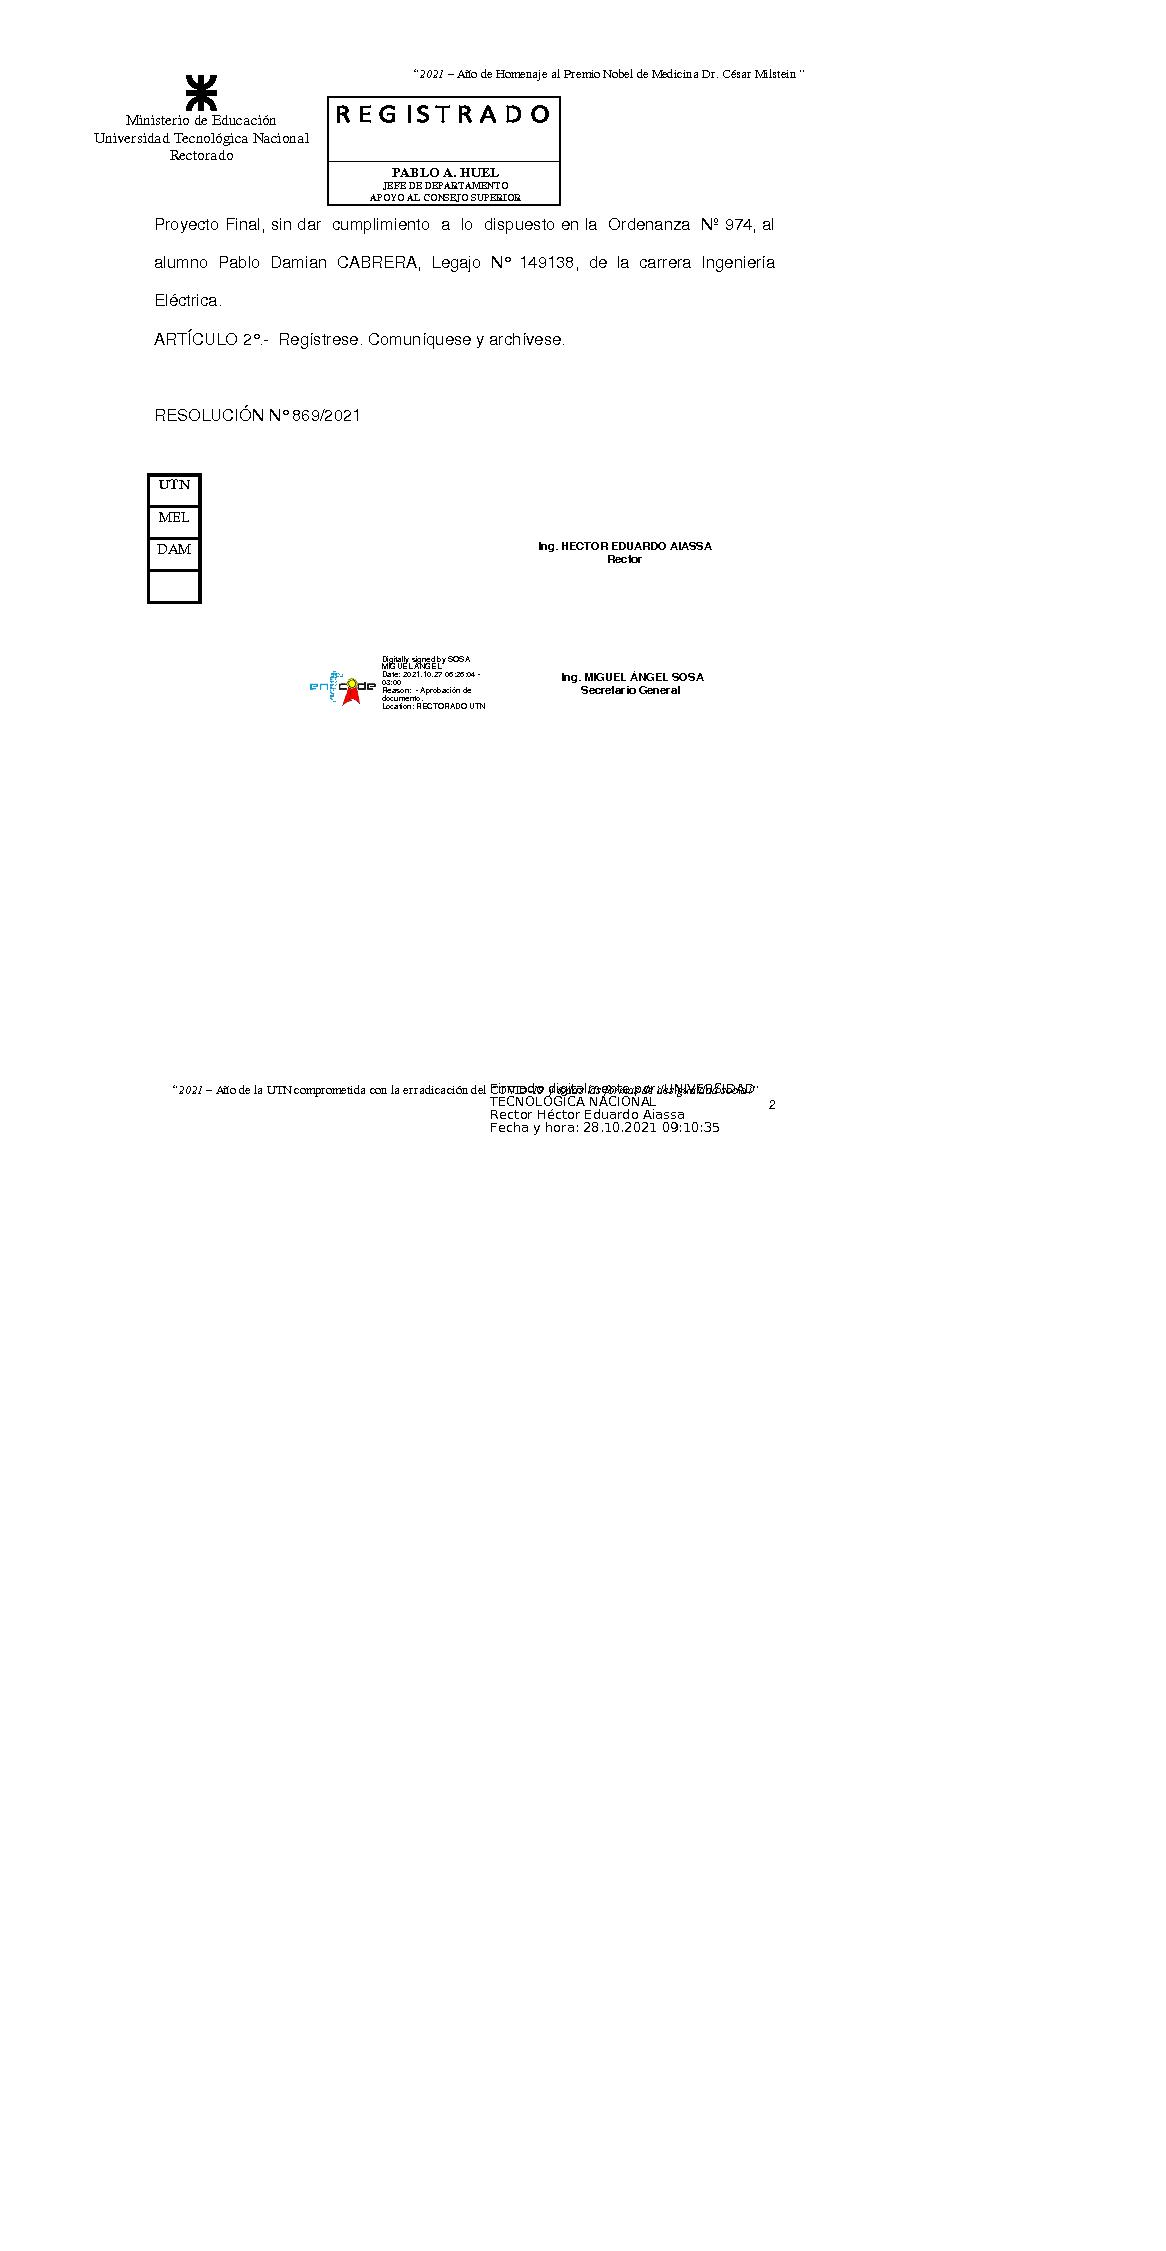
<!DOCTYPE html>
<meta charset="utf-8">
<style>body { margin: 0 } canvas { display: block }</style>
<canvas id="canvas" width="1166" height="2251"></canvas>
<script type="module">
  const canvas = document.getElementById("canvas");
  const g = canvas.getContext("2d");
  g.miterLimit = 4;
  g.fontKerning = "normal";
  function fillBox(x, y, w, h, color) {
    g.fillStyle = color;
    g.fillRect(x, y, w, h);
  }
  async function drawPicture(src, x, y, w, h) {
    const img = new Image();
    img.src = src;
    await img.decode();
    g.drawImage(img, x, y, w, h);
  }

  fillBox(0, 0, 1166, 2251, "#FFFFFF");
  await drawPicture("pic1.png", 88, 64, 720, 1072);
</script>
